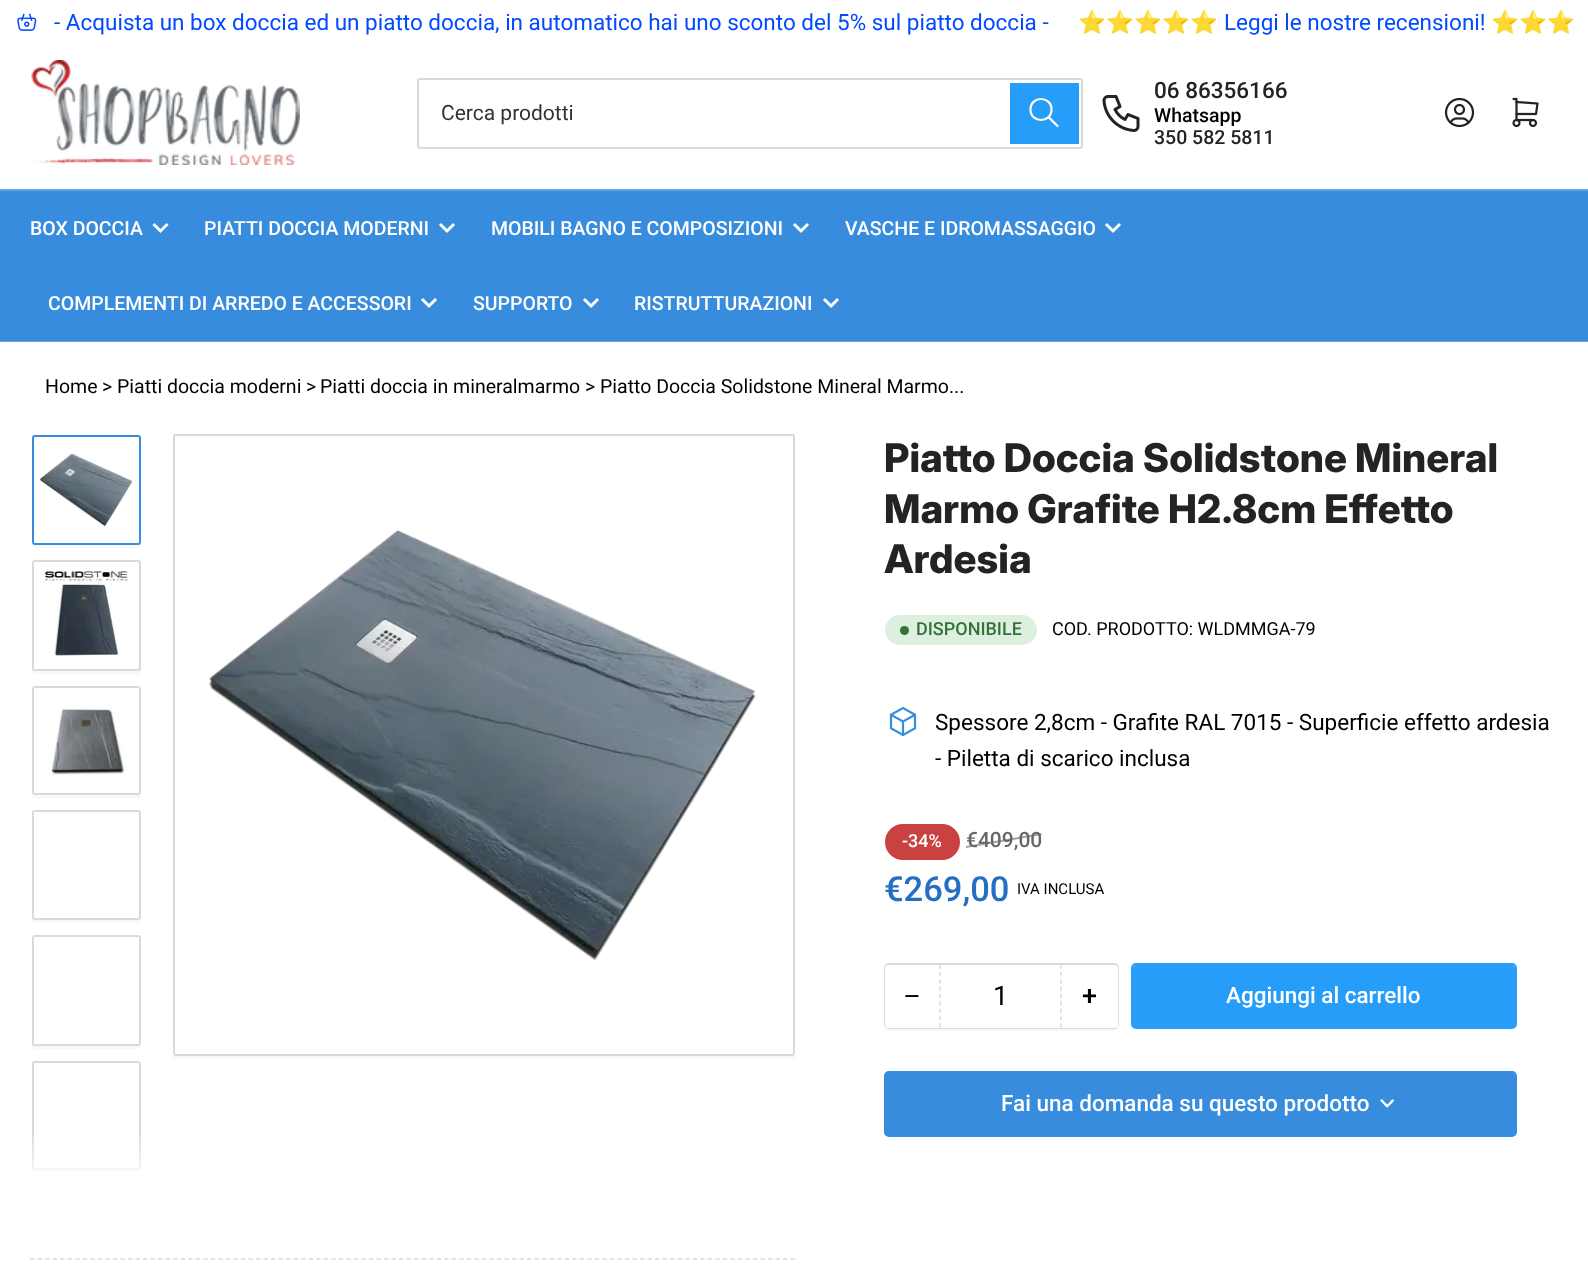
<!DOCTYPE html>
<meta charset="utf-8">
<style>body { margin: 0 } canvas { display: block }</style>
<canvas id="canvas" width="1588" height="1276"></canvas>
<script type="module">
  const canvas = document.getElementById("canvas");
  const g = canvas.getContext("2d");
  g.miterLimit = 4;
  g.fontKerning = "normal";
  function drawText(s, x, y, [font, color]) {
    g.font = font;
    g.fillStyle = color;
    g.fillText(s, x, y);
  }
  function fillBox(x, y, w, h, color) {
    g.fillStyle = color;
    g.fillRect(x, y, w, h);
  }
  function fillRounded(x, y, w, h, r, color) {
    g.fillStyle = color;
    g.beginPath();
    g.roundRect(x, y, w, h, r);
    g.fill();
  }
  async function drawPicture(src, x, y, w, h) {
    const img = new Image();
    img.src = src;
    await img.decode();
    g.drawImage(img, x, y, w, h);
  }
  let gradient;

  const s1 = ["22.5px Roboto", "#024AFF"];
  const s2 = ["22.5px Noto Color Emoji", "#024AFF"];
  const s3 = ["21px Roboto", "#333333"];
  const s4 = ["500 22.5px Roboto", "#232323"];
  const s5 = ["500 19.5px Roboto", "#000000"];
  const s6 = ["500 19.5px Roboto", "#232323"];
  const s7 = ["500 19.5px Roboto", "#FFFFFF"];
  const s8 = ["19.5px Roboto", "#000000"];
  const s9 = ["800 39.6px Inter", "#232323"];
  const s10 = ["500 18px Roboto", "#337239"];
  const s11 = ["18px Roboto", "#000000"];
  const s12 = ["22.5px Roboto", "#000000"];
  const s13 = ["500 18px Roboto", "#FFFFFF"];
  const s14 = ["500 21px Roboto", "#676767"];
  const s15 = ["500 34.5px Roboto", "#246EC4"];
  const s16 = ["15px Roboto", "#000000"];
  const s17 = ["27px Liberation Sans", "#000000"];
  const s18 = ["27px Roboto", "#000000"];
  const s19 = ["500 27px Roboto", "#000000"];
  const s20 = ["500 22.5px Roboto", "#FFFFFF"];

  fillBox(0, 0, 1588, 1276, "#FFFFFF");
  await drawPicture("pic1.png", 17, 13, 20, 18);
  drawText("- Acquista un box doccia ed un piatto doccia, in automatico hai uno sconto del 5% sul piatto doccia -", 54, 30, s1);
  drawText("⭐⭐⭐⭐⭐", 1078, 30, s2);
  drawText("Leggi le nostre recensioni!", 1224, 30, s1);
  drawText("⭐⭐⭐", 1491, 30, s2);
  await drawPicture("pic2.png", 31, 60, 269, 105);
  g.beginPath();
  g.roundRect(418, 79, 664, 69, 2);
  g.strokeStyle = "#DADADA";
  g.lineWidth = 2;
  g.stroke();
  drawText("Cerca prodotti", 441, 120, s3);
  g.strokeStyle = "#269DF9";
  g.strokeRect(1011, 84, 67, 59);
  fillBox(1012, 85, 65, 57, "#269DF9");
  g.beginPath();
  g.moveTo(1030.5, 109.5);
  g.bezierCurveTo(1030.5, 123.5, 1051.5, 123.5, 1051.5, 109.5);
  g.bezierCurveTo(1051.5, 95.5, 1030.5, 95.5, 1030.5, 109.5);
  g.moveTo(1057.5, 126);
  g.lineTo(1048.5, 117);
  g.strokeStyle = "#FFFFFF";
  g.lineWidth = 2.2;
  g.lineCap = "round";
  g.lineJoin = "round";
  g.stroke();
  await drawPicture("pic3.png", 1102, 95, 38, 37);
  drawText("06 86356166", 1154, 98, s4);
  drawText("Whatsapp", 1154, 122, s5);
  drawText("350 582 5811", 1154, 144, s6);
  await drawPicture("pic4.png", 1444, 97, 31, 31);
  await drawPicture("pic5.png", 1512, 97, 27, 31);
  fillBox(0, 191, 1588, 150, "#378CDE");
  fillBox(0, 341, 1588, 1, "#5FA3E5");
  fillBox(0, 189, 1588, 2, "#5FA3E5");
  drawText("BOX DOCCIA", 30, 235, s7);
  g.beginPath();
  g.moveTo(166.5, 225);
  g.lineTo(160.5, 231);
  g.lineTo(154.5, 225);
  g.lineWidth = 3;
  g.lineCap = "square";
  g.lineJoin = "miter";
  g.stroke();
  drawText("PIATTI DOCCIA MODERNI", 204, 235, s7);
  g.beginPath();
  g.moveTo(453, 225);
  g.lineTo(447, 231);
  g.lineTo(441, 225);
  g.stroke();
  drawText("MOBILI BAGNO E COMPOSIZIONI", 491, 235, s7);
  g.beginPath();
  g.moveTo(807, 225);
  g.lineTo(801, 231);
  g.lineTo(795, 225);
  g.stroke();
  drawText("VASCHE E IDROMASSAGGIO", 845, 235, s7);
  g.beginPath();
  g.moveTo(1119, 225);
  g.lineTo(1113, 231);
  g.lineTo(1107, 225);
  g.stroke();
  drawText("COMPLEMENTI DI ARREDO E ACCESSORI", 48, 310, s7);
  g.beginPath();
  g.moveTo(435, 300);
  g.lineTo(429, 306);
  g.lineTo(423, 300);
  g.stroke();
  drawText("SUPPORTO", 473, 310, s7);
  g.beginPath();
  g.moveTo(597, 300);
  g.lineTo(591, 306);
  g.lineTo(585, 300);
  g.stroke();
  drawText("RISTRUTTURAZIONI", 634, 310, s7);
  g.beginPath();
  g.moveTo(837, 300);
  g.lineTo(831, 306);
  g.lineTo(825, 300);
  g.stroke();
  drawText("Home", 45, 393, s8);
  drawText(">", 102, 393, s8);
  drawText("Piatti doccia moderni", 117, 393, s8);
  drawText(">", 306, 393, s8);
  drawText("Piatti doccia in mineralmarmo", 320, 393, s8);
  drawText(">", 585, 393, s8);
  drawText("Piatto Doccia Solidstone Mineral Marmo...", 600, 393, s8);
  g.fillStyle = "#F8F8F8";
  g.beginPath();
  g.moveTo(32, 543);
  g.lineTo(32, 545);
  g.bezierCurveTo(32, 547, 33, 548, 35, 548);
  g.lineTo(138, 548);
  g.bezierCurveTo(140, 548, 141, 547, 141, 545);
  g.lineTo(141, 542);
  g.bezierCurveTo(141, 543, 140, 544, 138, 544);
  g.lineTo(34, 544);
  g.bezierCurveTo(33, 544, 33, 544, 32, 543);
  g.closePath();
  g.fill();
  g.fillStyle = "#FFFFFF";
  g.beginPath();
  g.roundRect(33, 436, 107, 108, 2);
  g.fill();
  g.strokeStyle = "#378CDE";
  g.lineWidth = 2;
  g.stroke();
  await drawPicture("pic6.png", 40, 453, 93, 74);
  g.fillStyle = "#F8F8F8";
  g.beginPath();
  g.moveTo(32, 669);
  g.lineTo(32, 671);
  g.bezierCurveTo(32, 673, 33, 674, 35, 674);
  g.lineTo(138, 674);
  g.bezierCurveTo(140, 674, 141, 673, 141, 671);
  g.lineTo(141, 668);
  g.bezierCurveTo(141, 669, 140, 670, 138, 670);
  g.lineTo(34, 670);
  g.bezierCurveTo(33, 670, 33, 670, 32, 669);
  g.closePath();
  g.fill();
  g.fillStyle = "#FFFFFF";
  g.beginPath();
  g.roundRect(33, 561, 107, 109, 2);
  g.fill();
  g.strokeStyle = "#DADADA";
  g.stroke();
  await drawPicture("pic7.png", 43, 571, 85, 85);
  g.fillStyle = "#F8F8F8";
  g.beginPath();
  g.moveTo(32, 794);
  g.lineTo(32, 795);
  g.bezierCurveTo(32, 797, 33, 798, 35, 798);
  g.lineTo(138, 798);
  g.bezierCurveTo(140, 798, 141, 797, 141, 795);
  g.lineTo(141, 792);
  g.bezierCurveTo(141, 794, 140, 795, 138, 795);
  g.lineTo(34, 795);
  g.bezierCurveTo(33, 795, 33, 794, 32, 794);
  g.closePath();
  g.fill();
  g.beginPath();
  g.roundRect(33, 687, 107, 107, 2);
  g.stroke();
  await drawPicture("pic8.png", 51, 708, 74, 67);
  g.beginPath();
  g.moveTo(32, 918);
  g.lineTo(32, 920);
  g.bezierCurveTo(32, 922, 33, 923, 35, 923);
  g.lineTo(138, 923);
  g.bezierCurveTo(140, 923, 141, 922, 141, 920);
  g.lineTo(141, 916);
  g.bezierCurveTo(141, 918, 140, 920, 138, 920);
  g.lineTo(34, 920);
  g.bezierCurveTo(33, 920, 33, 919, 32, 918);
  g.closePath();
  g.fill();
  g.beginPath();
  g.roundRect(33, 811, 107, 108, 2);
  g.stroke();
  g.beginPath();
  g.moveTo(32, 1044);
  g.lineTo(32, 1046);
  g.bezierCurveTo(32, 1048, 33, 1049, 35, 1049);
  g.lineTo(138, 1049);
  g.bezierCurveTo(140, 1049, 141, 1048, 141, 1046);
  g.lineTo(141, 1042);
  g.bezierCurveTo(141, 1044, 140, 1046, 138, 1046);
  g.lineTo(34, 1046);
  g.bezierCurveTo(33, 1046, 33, 1045, 32, 1044);
  g.closePath();
  g.fill();
  g.beginPath();
  g.roundRect(33, 936, 107, 109, 2);
  g.stroke();
  g.beginPath();
  g.moveTo(32, 1169);
  g.lineTo(32, 1170);
  g.bezierCurveTo(32, 1172, 33, 1173, 35, 1173);
  g.lineTo(138, 1173);
  g.bezierCurveTo(140, 1173, 141, 1172, 141, 1170);
  g.lineTo(141, 1167);
  g.bezierCurveTo(141, 1169, 140, 1170, 138, 1170);
  g.lineTo(34, 1170);
  g.bezierCurveTo(33, 1170, 33, 1169, 32, 1169);
  g.closePath();
  g.fill();
  g.beginPath();
  g.roundRect(33, 1062, 107, 107, 2);
  g.stroke();
  gradient = g.createLinearGradient(86, 1184, 86, 1131);
  gradient.addColorStop(0, "#FFFFFF");
  gradient.addColorStop(1, "rgba(255, 255, 255, 0)");
  g.fillStyle = gradient;
  g.fillRect(32, 1135, 109, 38);
  g.fillStyle = "#F8F8F8";
  g.beginPath();
  g.moveTo(173, 1055);
  g.bezierCurveTo(173, 1057, 173, 1059, 176, 1059);
  g.lineTo(792, 1059);
  g.bezierCurveTo(795, 1059, 795, 1055, 795, 1053);
  g.bezierCurveTo(795, 1055, 794, 1056, 792, 1056);
  g.lineTo(176, 1056);
  g.bezierCurveTo(174, 1056, 174, 1055, 173, 1055);
  g.closePath();
  g.fill();
  g.beginPath();
  g.roundRect(174, 435, 620, 620, 2);
  g.stroke();
  await drawPicture("pic9.png", 209, 530, 547, 430);
  drawText("Piatto Doccia Solidstone Mineral", 884, 472, s9);
  drawText("Marmo Grafite H2.8cm Effetto", 884, 523, s9);
  drawText("Ardesia", 884, 573, s9);
  fillRounded(885, 615, 152, 30, 15, "#DDF0DF");
  g.fillStyle = "#337239";
  g.beginPath();
  g.arc(904.5, 630.5, 4.5, 0, Math.PI * 2);
  g.fill();
  drawText("DISPONIBILE", 916, 635, s10);
  drawText("COD. PRODOTTO: WLDMMGA-79", 1052, 635, s11);
  await drawPicture("pic10.png", 889, 706, 28, 31);
  drawText("Spessore 2,8cm - Grafite RAL 7015 - Superficie effetto ardesia", 935, 730, s12);
  drawText("- Piletta di scarico inclusa", 935, 766, s12);
  g.fillStyle = "#CA4141";
  g.beginPath();
  g.roundRect(886.5, 825.5, 72, 33, 16.5);
  g.fill();
  g.strokeStyle = "#CA4141";
  g.lineWidth = 3;
  g.stroke();
  drawText("-34%", 902, 847, s13);
  drawText("€409,00", 966, 847, s14);
  g.fillStyle = "rgba(103, 103, 103, 0.6)";
  g.beginPath();
  g.moveTo(966, 846);
  g.lineTo(1041, 833);
  g.lineTo(1042, 835);
  g.lineTo(966, 848);
  g.closePath();
  g.fill();
  drawText("€269,00", 884, 901, s15);
  drawText("IVA INCLUSA", 1017, 894, s16);
  g.fillStyle = "#F8F8F8";
  g.beginPath();
  g.moveTo(885, 1024);
  g.lineTo(885, 1028);
  g.bezierCurveTo(885, 1030, 886, 1031, 888, 1031);
  g.lineTo(1115, 1031);
  g.bezierCurveTo(1117, 1031, 1118, 1030, 1118, 1028);
  g.lineTo(1118, 971);
  g.lineTo(1118, 969);
  g.lineTo(1118, 1024);
  g.bezierCurveTo(1118, 1026, 1116, 1028, 1114, 1028);
  g.lineTo(888, 1028);
  g.bezierCurveTo(886, 1028, 885, 1026, 885, 1024);
  g.closePath();
  g.fill();
  g.beginPath();
  g.roundRect(885, 964, 233, 64, 4);
  g.strokeStyle = "#DADADA";
  g.lineWidth = 2;
  g.stroke();
  fillRounded(885, 965, 233, 63, 3, "#FFFFFF");
  drawText("−", 904, 1005, s17);
  g.beginPath();
  g.moveTo(1061, 964.5);
  g.lineTo(1061, 1027.5);
  g.lineWidth = 1.5;
  g.lineCap = "butt";
  g.setLineDash([4.5, 2.82]);
  g.stroke();
  g.beginPath();
  g.moveTo(940, 964.5);
  g.lineTo(940, 1027.5);
  g.stroke();
  drawText("1", 993, 1005, s18);
  drawText("+", 1082, 1005, s19);
  g.beginPath();
  g.roundRect(1132, 964, 384, 64, 4);
  g.strokeStyle = "#269DF9";
  g.lineWidth = 2;
  g.setLineDash([]);
  g.stroke();
  fillRounded(1133, 965, 382, 63, 3, "#269DF9");
  drawText("Aggiungi al carrello", 1226, 1003, s20);
  g.beginPath();
  g.roundRect(885, 1072, 631, 64, 4);
  g.strokeStyle = "#378CDE";
  g.stroke();
  fillRounded(885, 1073, 630, 63, 3, "#378CDE");
  drawText("Fai una domanda su questo prodotto", 1001, 1111, s20);
  g.beginPath();
  g.moveTo(1382.5, 1099.5);
  g.lineTo(1385, 1102.5);
  g.bezierCurveTo(1386, 1103, 1388.5, 1105, 1388.5, 1106.5);
  g.bezierCurveTo(1387.5, 1109.5, 1383, 1103.5, 1382.5, 1103);
  g.lineTo(1380.5, 1101);
  g.bezierCurveTo(1380, 1100, 1381.5, 1099, 1382.5, 1099.5);
  g.closePath();
  g.fill();
  g.beginPath();
  g.moveTo(1386.5, 1105.5);
  g.lineTo(1389.5, 1102.5);
  g.bezierCurveTo(1390, 1101.5, 1392, 1099, 1393, 1099.5);
  g.bezierCurveTo(1396, 1100, 1390.5, 1104.5, 1390, 1105);
  g.lineTo(1387.5, 1107);
  g.bezierCurveTo(1386.5, 1107.5, 1385.5, 1106, 1386.5, 1105.5);
  g.closePath();
  g.fill();
  g.beginPath();
  g.moveTo(30, 1259);
  g.lineTo(795, 1259);
  g.strokeStyle = "#DADADA";
  g.lineWidth = 1.5;
  g.setLineDash([4.5, 3.03]);
  g.stroke();
</script>
